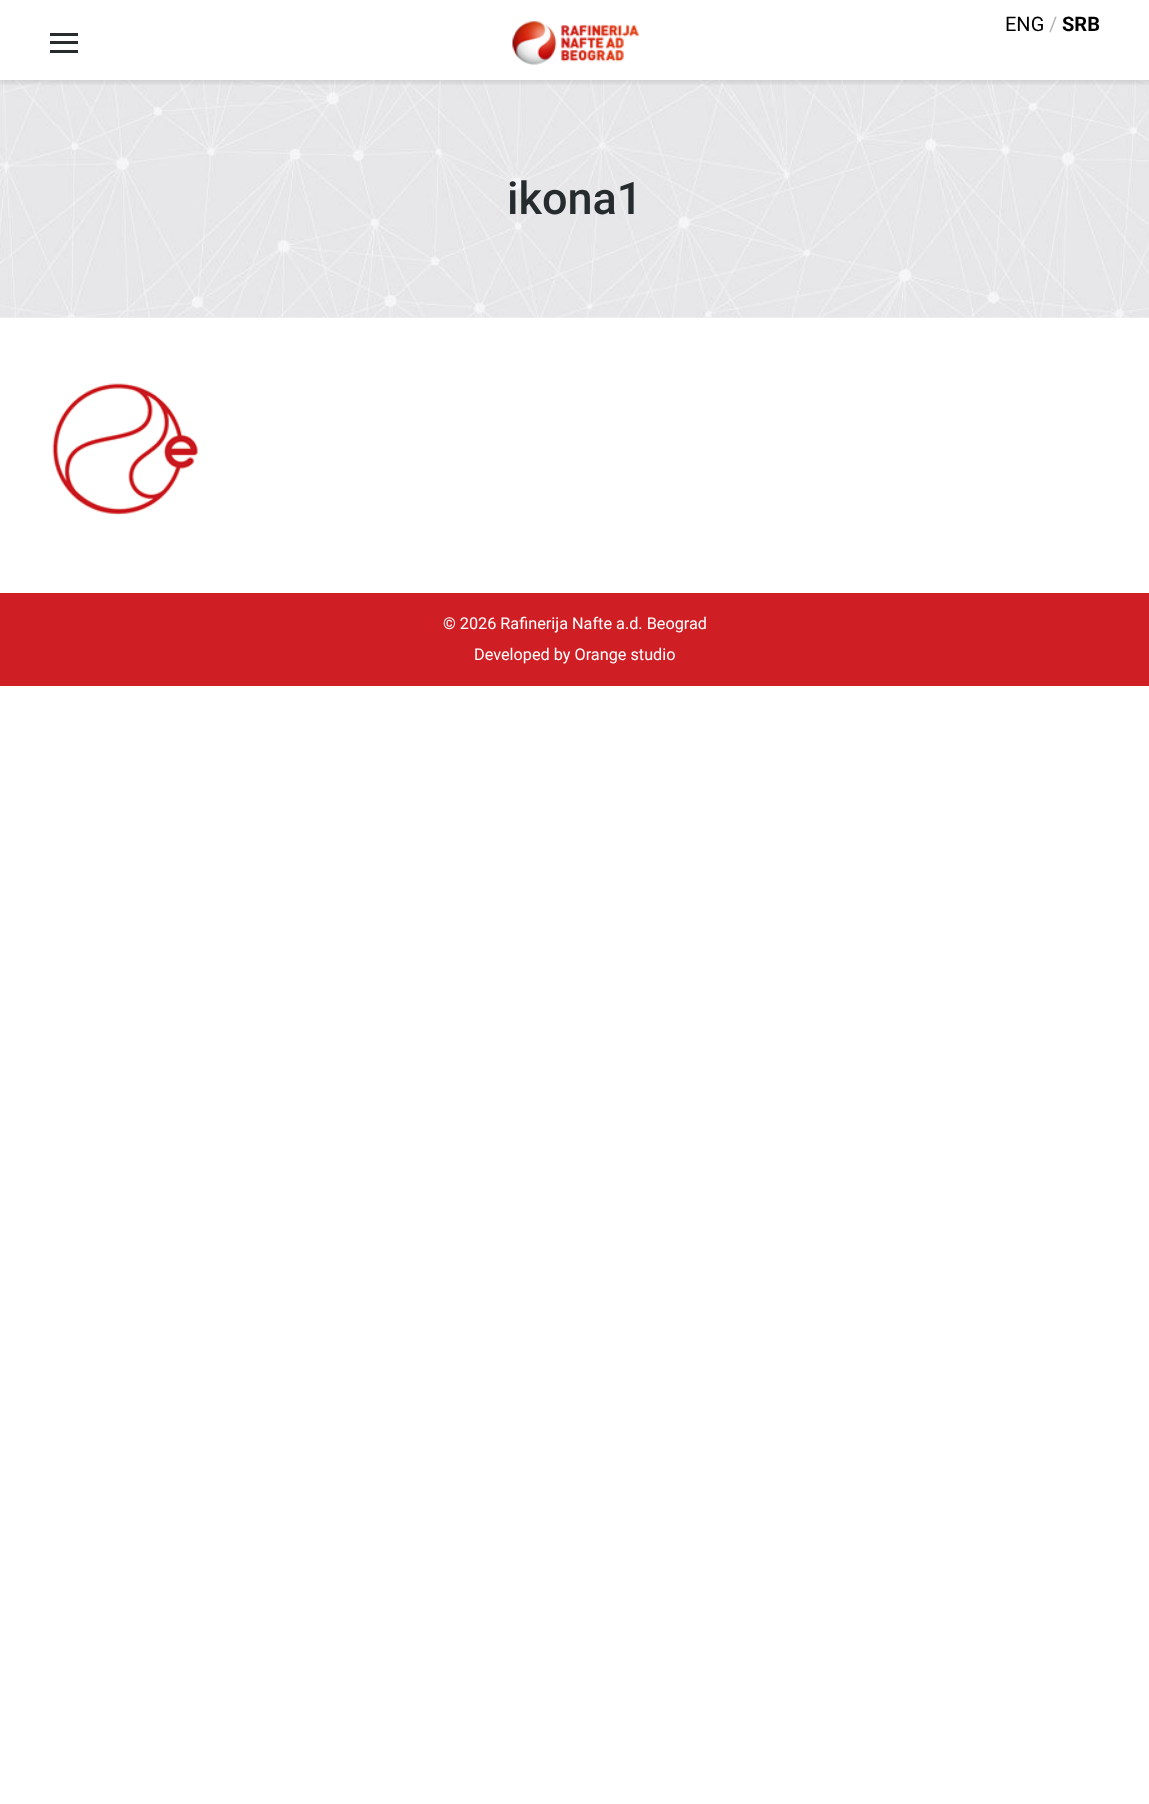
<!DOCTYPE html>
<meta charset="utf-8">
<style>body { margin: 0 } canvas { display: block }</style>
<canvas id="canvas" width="1149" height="1804"></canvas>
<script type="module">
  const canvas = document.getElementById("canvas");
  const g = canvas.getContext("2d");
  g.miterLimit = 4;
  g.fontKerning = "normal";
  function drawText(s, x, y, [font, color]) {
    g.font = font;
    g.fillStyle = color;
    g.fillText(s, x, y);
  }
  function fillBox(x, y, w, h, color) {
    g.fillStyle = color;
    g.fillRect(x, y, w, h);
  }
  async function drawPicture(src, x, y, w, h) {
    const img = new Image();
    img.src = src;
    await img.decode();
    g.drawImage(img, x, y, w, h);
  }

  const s1 = ["20px Roboto", "#000000"];
  const s2 = ["20px Roboto", "#B3B5B6"];
  const s3 = ["bold 20px Roboto", "#000000"];
  const s4 = ["500 45px Roboto", "#262B2E"];
  const s5 = ["16.25px Roboto", "#FFFFFF"];

  fillBox(0, 0, 1149, 1804, "#FFFFFF");
  fillBox(0, 317, 1149, 1, "#F2F3F3");
  await drawPicture("pic2.png", 0, 80, 1149, 238);
  g.save();
  g.beginPath();
  g.rect(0, 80, 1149, 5);
  g.clip();
  g.fillStyle = "rgba(0, 0, 0, 0.1)";
  g.filter = "blur(2.5px)";
  g.beginPath();
  g.rect(0, 0, 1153, 83);
  g.fill();
  g.filter = "none";
  g.restore();
  fillBox(50, 41, 28, 3, "#262B2E");
  fillBox(50, 33, 28, 3, "#262B2E");
  fillBox(50, 50, 28, 3, "#262B2E");
  await drawPicture("pic1.png", 512, 21, 127, 44);
  drawText("ENG", 1005, 31, s1);
  drawText("/", 1049, 31, s2);
  drawText("SRB", 1062, 31, s3);
  drawText("ikona1", 507, 214, s4);
  await drawPicture("pic3.png", 52, 383, 147, 132);
  fillBox(0, 593, 1149, 93, "#CF1F25");
  drawText("© 2026 Rafinerija Nafte a.d. Beograd", 443, 629, s5);
  drawText("Developed by Orange studio", 474, 660, s5);
</script>
